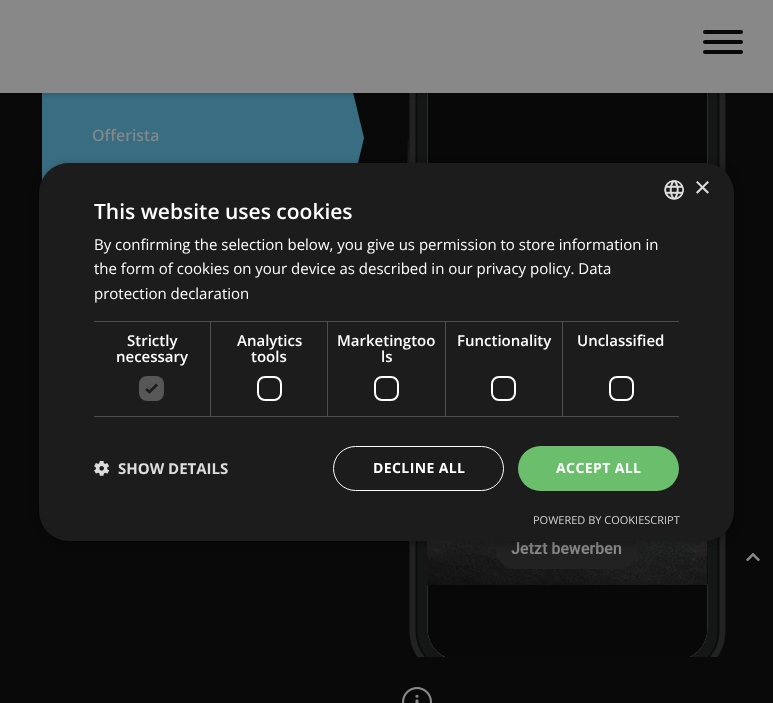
<!DOCTYPE html>
<meta charset="utf-8">
<style>body { margin: 0 } canvas { display: block }</style>
<canvas id="canvas" width="773" height="703"></canvas>
<script type="module">
  const canvas = document.getElementById("canvas");
  const g = canvas.getContext("2d");
  g.miterLimit = 4;
  g.fontKerning = "normal";
  function drawText(s, x, y, [font, color]) {
    g.font = font;
    g.fillStyle = color;
    g.fillText(s, x, y);
  }
  function fillBox(x, y, w, h, color) {
    g.fillStyle = color;
    g.fillRect(x, y, w, h);
  }
  function fillRounded(x, y, w, h, r, color) {
    g.fillStyle = color;
    g.beginPath();
    g.roundRect(x, y, w, h, r);
    g.fill();
  }
  async function drawPicture(src, x, y, w, h) {
    const img = new Image();
    img.src = src;
    await img.decode();
    g.drawImage(img, x, y, w, h);
  }

  const s1 = ["500 16px Noto Sans", "#888888"];
  const s2 = ["29px Liberation Sans", "#DDDDDD"];
  const s3 = ["600 21px Open Sans", "#FFFFFF"];
  const s4 = ["15px Open Sans", "#FFFFFF"];
  const s5 = ["600 15px Open Sans", "#FFFFFF"];
  const s6 = ["bold 15px Open Sans", "#DDDDDD"];
  const s7 = ["bold 14px Open Sans", "#FFFFFF"];
  const s8 = ["11px Open Sans", "#D2D2D2"];

  fillBox(0, 0, 773, 703, "#090909");
  fillBox(42, 93, 310, 87, "#396E82");
  g.beginPath();
  g.moveTo(352, 188);
  g.lineTo(352, 88);
  g.lineTo(364, 138);
  g.closePath();
  g.fill();
  await drawPicture("pic1.png", 407, 93, 319, 564);
  g.fillStyle = "rgba(9, 9, 9, 0.2)";
  g.filter = "blur(2.5px)";
  g.beginPath();
  g.rect(0, 2, 773, 93);
  g.fill();
  g.filter = "none";
  fillBox(0, 0, 773, 93, "#888888");
  fillRounded(703, 30, 40, 4, 2, "#090909");
  fillRounded(703, 40, 40, 4, 2, "#090909");
  fillRounded(703, 50, 40, 4, 2, "#090909");
  drawText("Offerista", 92, 141, s1);
  await drawPicture("pic2.png", 402, 687, 30, 16);
  await drawPicture("pic3.png", 746, 552, 14, 10);
  g.fillStyle = "rgba(0, 0, 0, 0.35)";
  g.filter = "blur(4px)";
  g.beginPath();
  g.roundRect(40, 165, 695, 378, 30);
  g.fill();
  g.filter = "none";
  fillRounded(39, 163, 695, 378, 30, "#1C1C1C");
  await drawPicture("pic4.png", 664, 180, 20, 20);
  drawText("×", 694, 197, s2);
  drawText("This website uses cookies", 94, 219, s3);
  drawText("By confirming the selection below, you give us permission to store information in", 94, 250, s4);
  drawText("the form of cookies on your device as described in our privacy policy. Data", 94, 274, s4);
  drawText("protection declaration", 94, 299, s4);
  fillBox(94, 321, 585, 1, "#4D4D4D");
  fillBox(210, 321, 1, 96, "#4D4D4D");
  fillBox(94, 416, 117, 1, "#4D4D4D");
  drawText("Strictly", 127, 346, s5);
  drawText("necessary", 116, 362, s5);
  fillRounded(139, 376, 25, 25, 8, "#575757");
  g.beginPath();
  g.moveTo(146, 389);
  g.lineTo(149.5, 392);
  g.lineTo(157, 384.5);
  g.strokeStyle = "#1C1C1C";
  g.lineWidth = 2.6;
  g.stroke();
  fillBox(327, 321, 1, 96, "#4D4D4D");
  fillBox(211, 416, 117, 1, "#4D4D4D");
  drawText("Analytics", 237, 346, s5);
  drawText("tools", 251, 362, s5);
  g.beginPath();
  g.roundRect(258, 377, 23, 23, 7);
  g.strokeStyle = "#FFFFFF";
  g.lineWidth = 2;
  g.stroke();
  fillBox(445, 321, 1, 96, "#4D4D4D");
  fillBox(328, 416, 118, 1, "#4D4D4D");
  drawText("Marketingtoo", 337, 346, s5);
  drawText("ls", 381, 362, s5);
  g.beginPath();
  g.roundRect(375, 377, 23, 23, 7);
  g.stroke();
  fillBox(562, 321, 1, 96, "#4D4D4D");
  fillBox(446, 416, 233, 1, "#4D4D4D");
  drawText("Functionality", 457, 346, s5);
  g.beginPath();
  g.roundRect(492, 377, 23, 23, 7);
  g.stroke();
  drawText("Unclassified", 577, 346, s5);
  g.beginPath();
  g.roundRect(610, 377, 23, 23, 7);
  g.stroke();
  await drawPicture("pic5.png", 94, 461, 15, 15);
  drawText("SHOW DETAILS", 118, 474, s6);
  g.beginPath();
  g.roundRect(333.5, 446.5, 170, 44, 22);
  g.lineWidth = 1;
  g.stroke();
  g.letterSpacing = "0.4px";
  drawText("DECLINE ALL", 373, 473, s7);
  fillRounded(518, 446, 161, 45, 22.5, "#6BBE6B");
  drawText("ACCEPT ALL", 556, 473, s7);
  g.letterSpacing = "0px";
  drawText("POWERED BY COOKIESCRIPT", 533, 524, s8);
</script>
